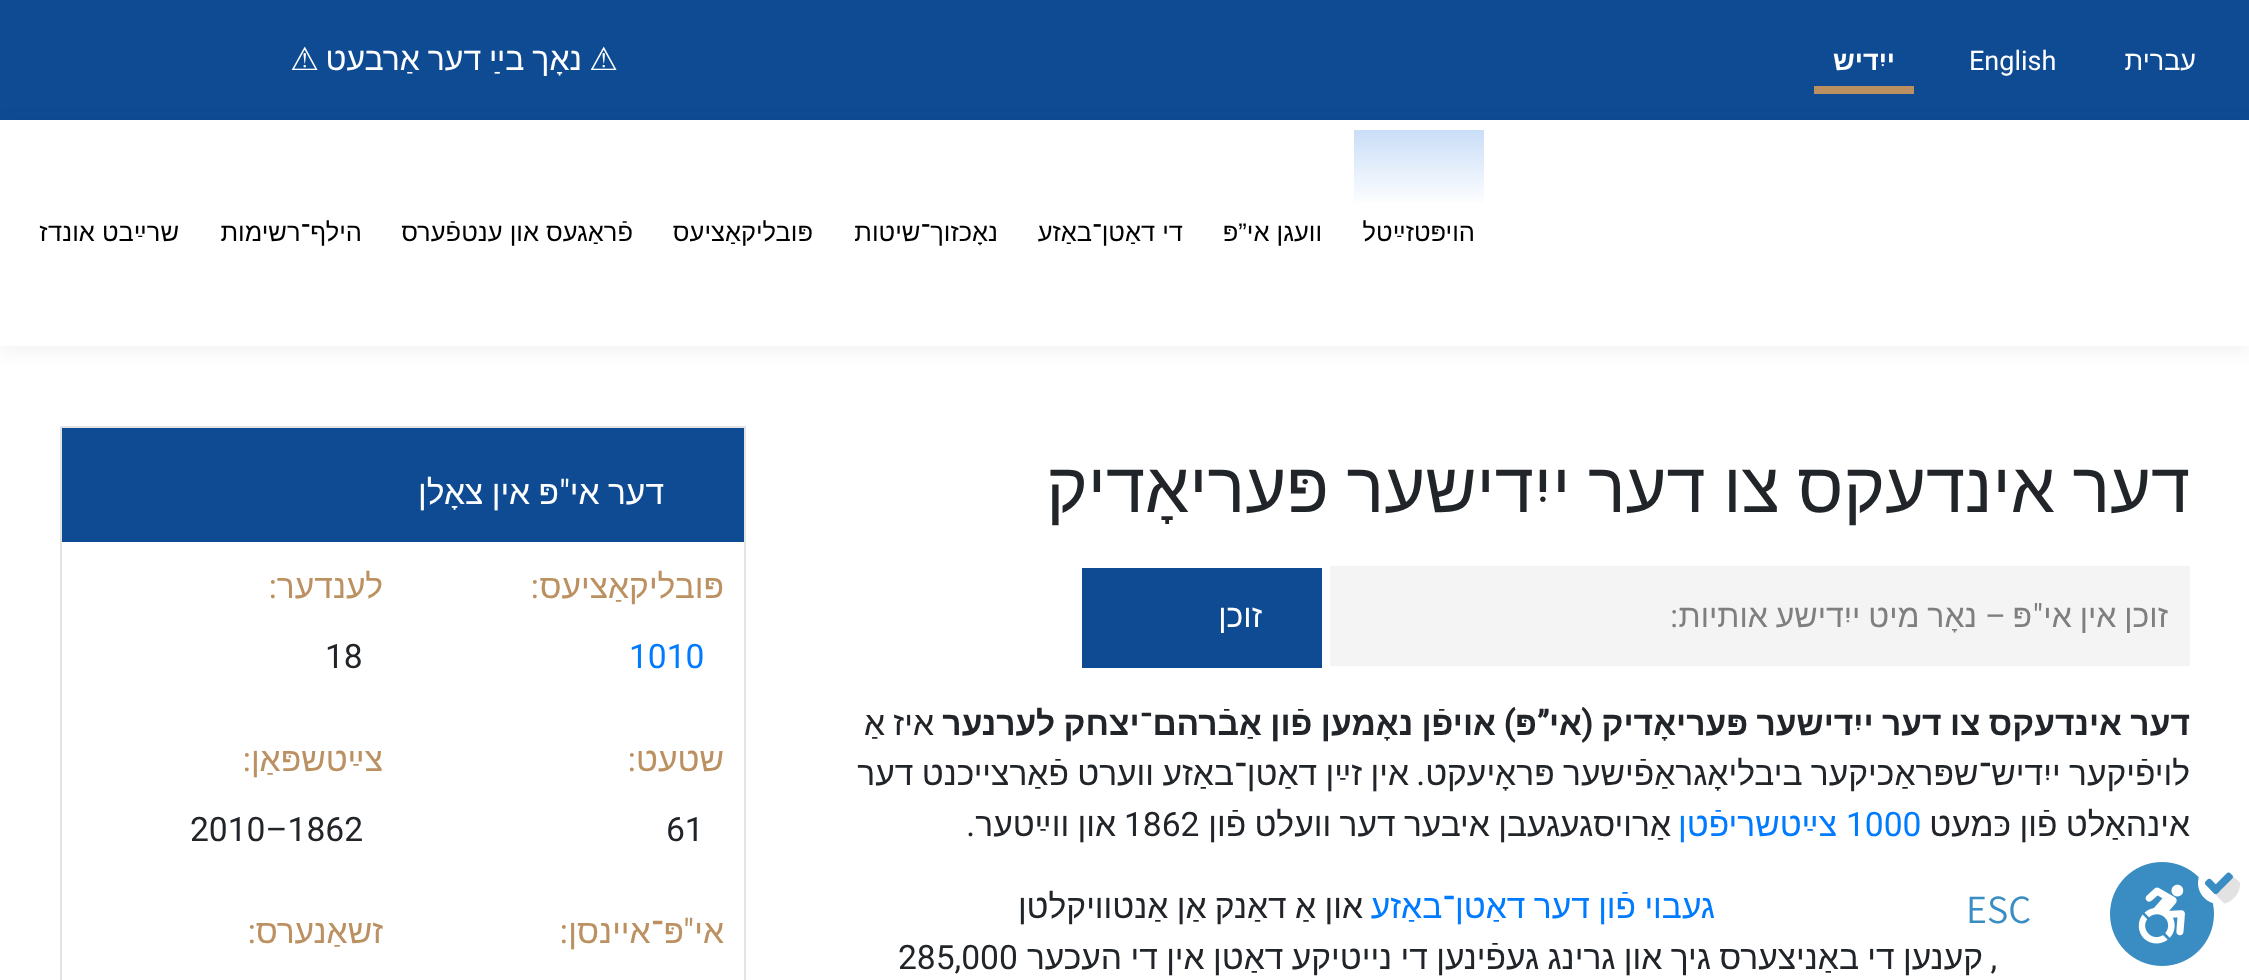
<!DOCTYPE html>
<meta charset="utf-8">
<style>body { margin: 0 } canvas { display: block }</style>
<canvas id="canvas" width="2249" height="980"></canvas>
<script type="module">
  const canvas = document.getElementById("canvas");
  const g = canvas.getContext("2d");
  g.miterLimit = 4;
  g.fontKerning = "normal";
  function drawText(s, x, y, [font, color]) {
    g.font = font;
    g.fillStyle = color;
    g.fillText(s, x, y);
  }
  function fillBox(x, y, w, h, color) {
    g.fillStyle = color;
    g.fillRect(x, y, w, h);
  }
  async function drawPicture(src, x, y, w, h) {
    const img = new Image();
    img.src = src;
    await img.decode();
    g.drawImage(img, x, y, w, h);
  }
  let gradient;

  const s1 = ["27px Liberation Sans", "#FFFFFF"];
  const s2 = ["27px Roboto", "#FFFFFF"];
  const s3 = ["bold 27px Liberation Sans", "#FFFFFF"];
  const s4 = ["32px DejaVu Sans", "#FFFFFF"];
  const s5 = ["32px Liberation Sans", "#FFFFFF"];
  const s6 = ["25.5px Liberation Sans", "#000000"];
  const s7 = ["70.4px Liberation Sans", "#212529"];
  const s8 = ["32px Liberation Sans", "#7F7F7F"];
  const s9 = ["32px Roboto", "#7F7F7F"];
  const s10 = ["bold 33.6px Liberation Sans", "#212529"];
  const s11 = ["bold 33.6px Roboto", "#212529"];
  const s12 = ["33.6px Liberation Sans", "#212529"];
  const s13 = ["33.6px Roboto", "#212529"];
  const s14 = ["33.6px Roboto", "#007BFF"];
  const s15 = ["33.6px Liberation Sans", "#007BFF"];
  const s16 = ["33.6px Liberation Sans", "#FFFFFF"];
  const s17 = ["33.6px Roboto", "#FFFFFF"];
  const s18 = ["33.6px Liberation Sans", "#BC9161"];
  const s19 = ["33.6px Roboto", "#BC9161"];
  const s20 = ["40px Assistant", "#3A8DC2"];

  fillBox(0, 0, 2249, 980, "#FFFFFF");
  fillBox(0, 0, 2249, 120, "#0F4B93");
  g.direction = "rtl";
  drawText("עברית", 2196, 70, s1);
  g.direction = "ltr";
  drawText("English", 1969, 70, s2);
  g.direction = "rtl";
  drawText("ייִדיש", 1895, 70, s3);
  g.fillStyle = "rgba(0, 0, 0, 0.06)";
  g.filter = "blur(10px)";
  g.beginPath();
  g.rect(0, 124, 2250, 226);
  g.fill();
  g.filter = "none";
  fillBox(1814, 86, 100, 8, "#BC9161");
  drawText("⚠", 618, 70, s4);
  g.wordSpacing = "-1px";
  drawText("נאָך בײַ דער אַרבעט", 582, 70, s5);
  g.wordSpacing = "0px";
  drawText("⚠", 319, 70, s4);
  fillBox(0, 120, 2249, 226, "#FFFFFF");
  drawText("הויפּטזײַטל", 1475, 241, s6);
  gradient = g.createLinearGradient(1419, 105, 1419, 336);
  gradient.addColorStop(0, "#B8D3F5");
  gradient.addColorStop(0.44, "#FFFFFF");
  g.fillStyle = gradient;
  g.fillRect(1354, 130, 130, 73);
  drawText("וועגן אי”פּ", 1322, 241, s6);
  drawText("די דאַטן־באַזע", 1183, 241, s6);
  drawText("נאָכזוך־שיטות", 998, 241, s6);
  drawText("פּובליקאַציעס", 813, 241, s6);
  drawText("פֿראַגעס און ענטפֿערס", 633, 241, s6);
  drawText("הילף־רשימות", 362, 241, s6);
  drawText("שרײַבט אונדז", 179, 241, s6);
  g.wordSpacing = "-2px";
  drawText("דער אינדעקס צו דער ייִדישער פּעריאָדיק", 2190, 512, s7);
  fillBox(1330, 566, 860, 100, "#F4F4F4");
  g.save();
  g.beginPath();
  g.rect(1352, 598, 816, 38);
  g.clip();
  g.wordSpacing = "-1px";
  drawText("זוכן אין אי", 2168, 627, s8);
  g.restore();
  g.wordSpacing = "0px";
  drawText("\"", 2043, 627, s9);
  drawText("פּ", 2032, 627, s8);
  drawText("–", 2006, 627, s9);
  g.wordSpacing = "-1px";
  drawText("נאָר מיט ייִדישע אותיות", 1977, 627, s8);
  g.wordSpacing = "0px";
  drawText(":", 1678, 627, s9);
  fillBox(1082, 568, 240, 100, "#0F4B93");
  drawText("זוכן", 1262, 627, s5);
  g.wordSpacing = "-1px";
  drawText("דער אינדעקס צו דער ייִדישער פּעריאָדיק", 2190, 735, s10);
  g.wordSpacing = "0px";
  drawText("(", 1593, 735, s11);
  drawText("אי", 1582, 735, s10);
  drawText("”", 1549, 735, s11);
  drawText("פּ", 1537, 735, s10);
  drawText(")", 1515, 735, s11);
  g.wordSpacing = "-1px";
  drawText("אויפֿן נאָמען פֿון אַבֿרהם־יצחק לערנער", 1496, 735, s10);
  drawText("איז אַ", 934, 735, s12);
  drawText("לויפֿיקער ייִדיש־שפּראַכיקער ביבליאָגראַפֿישער פּראָיעקט", 2190, 785, s12);
  g.wordSpacing = "0px";
  drawText(".", 1425, 785, s13);
  g.wordSpacing = "-1px";
  drawText("אין זײַן דאַטן־באַזע ווערט פֿאַרצייכנט דער", 1409, 785, s12);
  drawText("אינהאַלט פֿון כּמעט", 2190, 836, s12);
  g.wordSpacing = "0px";
  g.direction = "ltr";
  drawText("1000", 1846, 836, s14);
  g.direction = "rtl";
  drawText("צײַטשריפֿטן", 1837, 836, s15);
  g.wordSpacing = "-1px";
  drawText("אַרויסגעגעבן איבער דער וועלט פֿון", 1671, 836, s12);
  g.wordSpacing = "0px";
  g.direction = "ltr";
  drawText("1862", 1124, 836, s13);
  g.wordSpacing = "-1px";
  g.direction = "rtl";
  drawText("און ווײַטער", 1116, 836, s12);
  g.wordSpacing = "0px";
  drawText(".", 975, 836, s13);
  g.wordSpacing = "-1px";
  drawText("געבוי פֿון דער דאַטן־באַזע", 1715, 918, s15);
  drawText("און אַ דאַנק אַן אַנטוויקלטן", 1363, 918, s12);
  drawText("קענען די באַניצערס גיך און גרינג געפֿינען די נייטיקע דאַטן אין די העכער", 1983, 969, s12);
  g.wordSpacing = "0px";
  g.direction = "ltr";
  drawText("285,000", 898, 969, s13);
  g.direction = "rtl";
  drawText(",", 1997, 969, s13);
  g.strokeStyle = "#E3E3E3";
  g.lineWidth = 2;
  g.strokeRect(61, 427, 684, 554);
  fillBox(62, 428, 682, 114, "#0F4B93");
  g.wordSpacing = "-1px";
  drawText("דער אי", 664, 504, s16);
  g.wordSpacing = "0px";
  drawText("\"", 570, 504, s17);
  g.wordSpacing = "-1px";
  drawText("פּ אין צאָלן", 559, 504, s16);
  g.wordSpacing = "0px";
  drawText("פּובליקאַציעס", 724, 598, s18);
  drawText(":", 539, 598, s19);
  g.direction = "ltr";
  drawText("1010", 629, 668, s14);
  g.direction = "rtl";
  drawText("לענדער", 383, 598, s18);
  drawText(":", 277, 598, s19);
  g.direction = "ltr";
  drawText("18", 325, 668, s13);
  g.direction = "rtl";
  drawText("שטעט", 724, 771, s18);
  drawText(":", 636, 771, s19);
  g.direction = "ltr";
  drawText("61", 666, 841, s13);
  g.direction = "rtl";
  drawText("צײַטשפּאַן", 383, 771, s18);
  drawText(":", 251, 771, s19);
  g.direction = "ltr";
  drawText("2010–1862", 190, 841, s13);
  g.direction = "rtl";
  drawText("אי", 724, 943, s18);
  drawText("\"", 694, 943, s19);
  drawText("פּ־איינסן", 684, 943, s18);
  drawText(":", 568, 943, s19);
  drawText("זשאַנערס", 383, 943, s18);
  drawText(":", 256, 943, s19);
  await drawPicture("pic1.png", 2110, 862, 130, 104);
  g.direction = "ltr";
  drawText("ESC", 1966, 923, s20);
</script>
